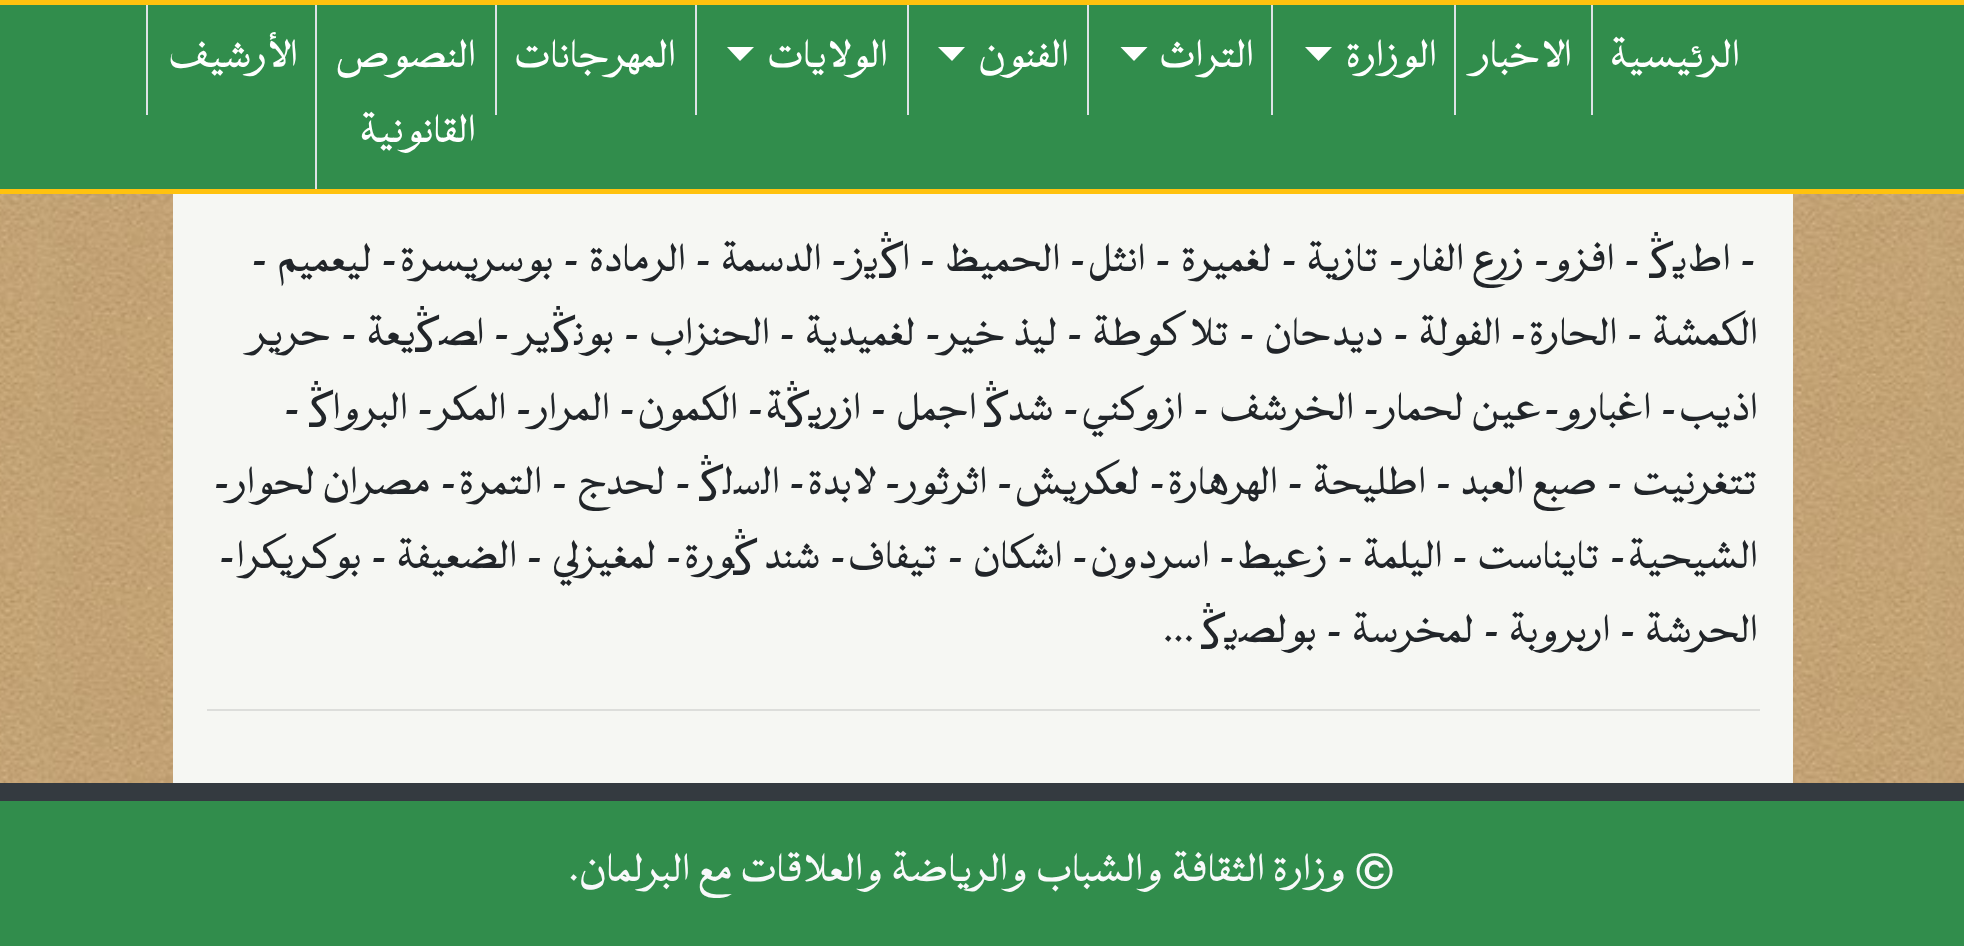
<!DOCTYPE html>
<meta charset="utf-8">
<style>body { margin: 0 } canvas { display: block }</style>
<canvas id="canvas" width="1964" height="946"></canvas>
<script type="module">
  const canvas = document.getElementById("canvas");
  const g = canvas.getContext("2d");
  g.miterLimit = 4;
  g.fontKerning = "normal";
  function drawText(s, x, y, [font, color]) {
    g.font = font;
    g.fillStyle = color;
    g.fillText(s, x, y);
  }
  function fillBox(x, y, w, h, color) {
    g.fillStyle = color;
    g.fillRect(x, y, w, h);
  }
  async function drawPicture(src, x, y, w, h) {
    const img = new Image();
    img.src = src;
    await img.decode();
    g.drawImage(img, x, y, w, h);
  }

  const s1 = ["49.5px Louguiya", "#FFFFFF"];
  const s2 = ["49.5px DejaVu Sans", "#212529"];
  const s3 = ["49.5px Louguiya", "#212529"];
  const s4 = ["49.5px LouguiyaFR", "#F8F9FA"];
  const s5 = ["49.5px Louguiya", "#F8F9FA"];

  fillBox(0, 0, 1964, 946, "#FFFFFF");
  await drawPicture("pic1.png", 0, 194, 1964, 589);
  fillBox(0, 5, 1964, 184, "#318D4C");
  fillBox(0, 0, 1964, 5, "#FFC20E");
  fillBox(0, 189, 1964, 5, "#FFC20E");
  fillBox(1591, 5, 2, 110, "#DEE2E6");
  g.direction = "rtl";
  drawText("الرئيسية", 1740, 74, s1);
  fillBox(1454, 5, 2, 110, "#DEE2E6");
  drawText("الاخبار", 1572, 74, s1);
  fillBox(1271, 5, 2, 110, "#DEE2E6");
  drawText("الوزارة", 1437, 74, s1);
  g.beginPath();
  g.moveTo(1305, 47);
  g.lineTo(1332, 47);
  g.lineTo(1318.5, 61);
  g.closePath();
  g.fill();
  fillBox(1087, 5, 2, 110, "#DEE2E6");
  drawText("التراث", 1254, 74, s1);
  g.beginPath();
  g.moveTo(1120.5, 47);
  g.lineTo(1147.5, 47);
  g.lineTo(1134, 61);
  g.closePath();
  g.fill();
  fillBox(907, 5, 2, 110, "#DEE2E6");
  drawText("الفنون", 1069, 74, s1);
  g.beginPath();
  g.moveTo(938, 47);
  g.lineTo(965, 47);
  g.lineTo(952, 61);
  g.closePath();
  g.fill();
  fillBox(695, 5, 2, 110, "#DEE2E6");
  drawText("الولايات", 888, 74, s1);
  g.beginPath();
  g.moveTo(727, 47);
  g.lineTo(754, 47);
  g.lineTo(740, 61);
  g.closePath();
  g.fill();
  fillBox(495, 5, 2, 110, "#DEE2E6");
  drawText("المهرجانات", 676, 74, s1);
  fillBox(315, 5, 2, 184, "#DEE2E6");
  drawText("النصوص", 476, 74, s1);
  drawText("القانونية", 476, 149, s1);
  fillBox(146, 5, 2, 110, "#DEE2E6");
  drawText("الأرشيف", 298, 74, s1);
  fillBox(173, 194, 1620, 589, "#F6F7F3");
  drawText("ﯕ", 1673, 278, s2);
  drawText("- اطﻳ", 1758, 278, s3);
  drawText("- افزو- زرع الفار- تازية - لغميرة - انثل- الحميظ - ا", 1642, 278, s3);
  drawText("ﯕ", 903, 278, s2);
  drawText("ﻳز- الدسمة - الرمادة - بوسريسرة- ليعميم -", 879, 278, s3);
  drawText("ﯕ", 575, 352, s2);
  drawText("الكمشة - الحارة- الفولة - ديدحان - تلا كوطة - ليذ خير- لغميدية - الحنزاب - بوﻧ", 1758, 352, s3);
  drawText("ﯕ", 439, 352, s2);
  drawText("ﻳﺮ - اﺼ", 551, 352, s3);
  drawText("ﻳﻌﺔ - حرير", 416, 352, s3);
  drawText("اذيب- اغبارو-عين لحمار- الخرشف - ازوكني- شد", 1758, 427, s3);
  drawText("ﯕ", 1008, 427, s2);
  drawText("ﯕ", 333, 427, s2);
  drawText("ﺔ- الكمون- المرار- المكر- البروا", 785, 427, s3);
  drawText("ﯕ", 809, 427, s2);
  drawText("اجمل - ازرﻳ", 977, 427, s3);
  drawText("-", 302, 427, s3);
  drawText("ﯕ", 723, 501, s2);
  drawText("تتغرنيت - صبع العبد - اطليحة - الهرهارة- لعكريش- اثرثور- لابدة- اﻟﺳﻟ", 1758, 501, s3);
  drawText("- لحدج - التمرة- مصران لحوار-", 693, 501, s3);
  drawText("الشيحية- تايناست - اليلمة - زعيط- اسردون- اشكان - تيفاف- شند", 1758, 575, s3);
  drawText("ﻮرة- لمغيزلي - الضعيفة - بوكريكرا-", 734, 575, s3);
  drawText("ﯕ", 757, 575, s2);
  drawText("ﯕ", 1225, 649, s2);
  drawText("الحرشة - اربروبة - لمخرسة - بوﻟﺼﻳ", 1758, 649, s3);
  drawText("...", 1194, 649, s3);
  fillBox(207, 709, 1553, 2, "#DDDEDB");
  fillBox(0, 783, 1964, 18, "#343A40");
  fillBox(0, 801, 1964, 145, "#318D4C");
  drawText("©", 1395, 888, s4);
  drawText("وزارة الثقافة", 1347, 888, s5);
  drawText("والشباب والرياضة والعلاقات مع البرلمان.", 1164, 888, s5);
</script>
